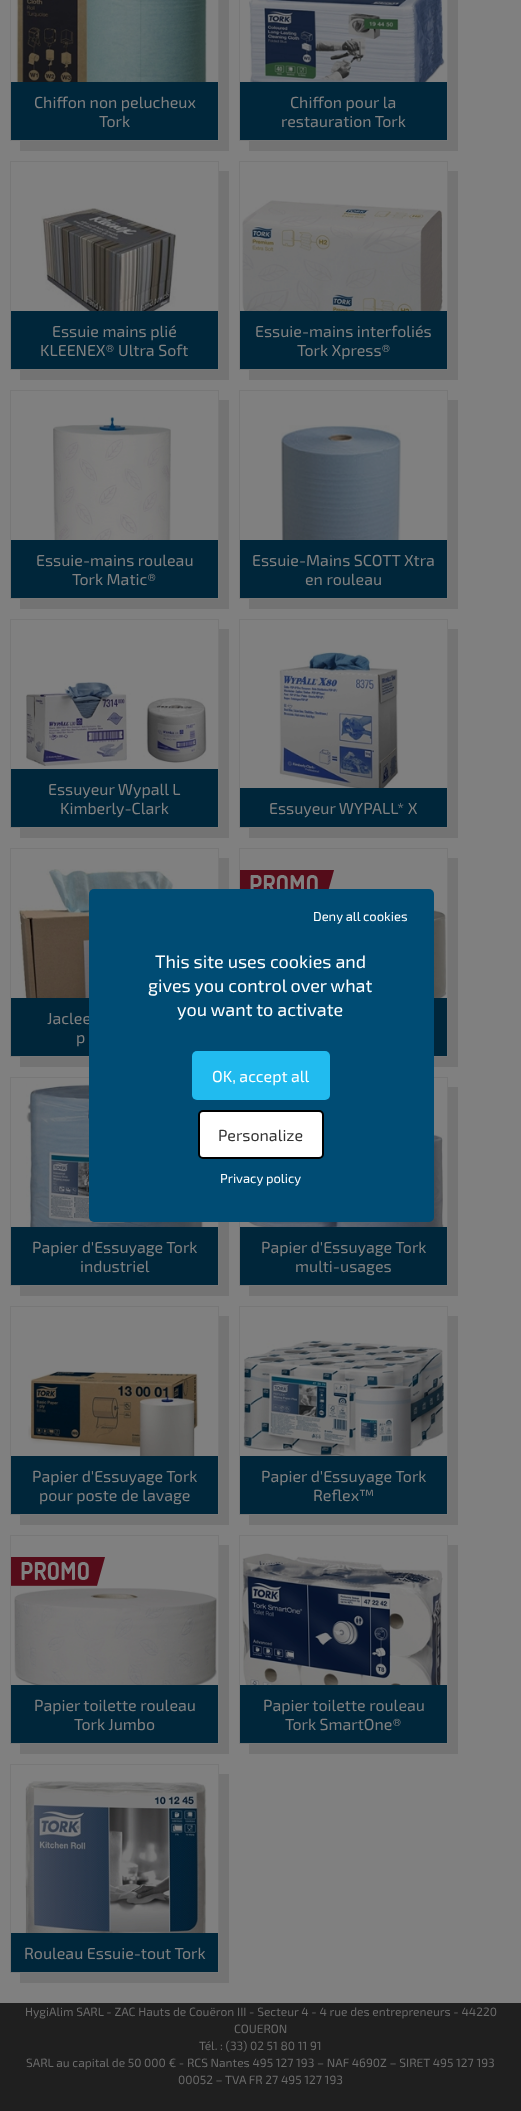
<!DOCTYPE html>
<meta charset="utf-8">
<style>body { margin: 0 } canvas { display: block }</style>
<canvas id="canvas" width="521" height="2111"></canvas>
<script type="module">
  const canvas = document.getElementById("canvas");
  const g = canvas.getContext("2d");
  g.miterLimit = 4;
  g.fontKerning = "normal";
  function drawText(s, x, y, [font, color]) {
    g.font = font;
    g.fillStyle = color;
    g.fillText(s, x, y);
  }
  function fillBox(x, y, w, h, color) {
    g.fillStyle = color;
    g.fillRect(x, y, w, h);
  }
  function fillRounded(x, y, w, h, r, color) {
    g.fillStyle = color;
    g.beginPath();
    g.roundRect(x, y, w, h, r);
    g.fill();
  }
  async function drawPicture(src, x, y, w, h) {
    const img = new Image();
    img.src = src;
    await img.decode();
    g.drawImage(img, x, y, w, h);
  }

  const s1 = ["16px 'Exo 2'", "#808080"];
  const s2 = ["12px 'Exo 2'", "#6B6B6B"];
  const s3 = ["13px 'Exo 2'", "#FFFFFF"];
  const s4 = ["18px 'Exo 2'", "#FFFFFF"];
  const s5 = ["16px 'Exo 2'", "#FFFFFF"];
  const s6 = ["16px 'Exo 2'", "#333333"];

  fillBox(0, 0, 521, 2111, "#808080");
  g.fillStyle = "#737373";
  g.beginPath();
  g.moveTo(20, 141);
  g.lineTo(20, 151);
  g.lineTo(229, 151);
  g.lineTo(229, -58);
  g.lineTo(219, -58);
  g.lineTo(219, 141);
  g.closePath();
  g.fill();
  await drawPicture("pic1.png", 16, 0, 191, 82);
  g.strokeStyle = "#777777";
  g.strokeRect(10.5, -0.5, 208, 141);
  fillBox(11, 82, 207, 58, "#00263A");
  drawText("Chiffon non pelucheux", 34, 108, s1);
  drawText("Tork", 99, 127, s1);
  g.fillStyle = "#737373";
  g.beginPath();
  g.moveTo(249, 141);
  g.lineTo(249, 151);
  g.lineTo(458, 151);
  g.lineTo(458, -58);
  g.lineTo(448, -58);
  g.lineTo(448, 141);
  g.closePath();
  g.fill();
  await drawPicture("pic2.png", 249, 0, 196, 82);
  g.strokeRect(239.5, -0.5, 208, 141);
  fillBox(240, 82, 207, 58, "#00263A");
  drawText("Chiffon pour la", 290, 108, s1);
  drawText("restauration Tork", 281, 127, s1);
  g.fillStyle = "#737373";
  g.beginPath();
  g.moveTo(20, 370);
  g.lineTo(20, 380);
  g.lineTo(229, 380);
  g.lineTo(229, 171);
  g.lineTo(219, 171);
  g.lineTo(219, 370);
  g.closePath();
  g.fill();
  await drawPicture("pic3.png", 41, 208, 136, 103);
  g.strokeRect(10.5, 161.5, 208, 208);
  fillBox(11, 311, 207, 58, "#00263A");
  drawText("Essuie mains plié", 52, 337, s1);
  drawText("KLEENEX® Ultra Soft", 40, 356, s1);
  g.fillStyle = "#737373";
  g.beginPath();
  g.moveTo(249, 370);
  g.lineTo(249, 380);
  g.lineTo(458, 380);
  g.lineTo(458, 171);
  g.lineTo(448, 171);
  g.lineTo(448, 370);
  g.closePath();
  g.fill();
  await drawPicture("pic4.png", 242, 200, 201, 111);
  g.strokeRect(239.5, 161.5, 208, 208);
  fillBox(240, 311, 207, 58, "#00263A");
  drawText("Essuie-mains interfoliés", 255, 337, s1);
  drawText("Tork Xpress®", 297, 356, s1);
  g.fillStyle = "#737373";
  g.beginPath();
  g.moveTo(20, 599);
  g.lineTo(20, 609);
  g.lineTo(229, 609);
  g.lineTo(229, 400);
  g.lineTo(219, 400);
  g.lineTo(219, 599);
  g.closePath();
  g.fill();
  await drawPicture("pic5.png", 53, 417, 118, 123);
  g.strokeRect(10.5, 390.5, 208, 208);
  fillBox(11, 540, 207, 58, "#00263A");
  drawText("Essuie-mains rouleau", 36, 566, s1);
  drawText("Tork Matic®", 72, 585, s1);
  g.fillStyle = "#737373";
  g.beginPath();
  g.moveTo(249, 599);
  g.lineTo(249, 609);
  g.lineTo(458, 609);
  g.lineTo(458, 400);
  g.lineTo(448, 400);
  g.lineTo(448, 599);
  g.closePath();
  g.fill();
  await drawPicture("pic6.png", 281, 425, 120, 115);
  g.strokeRect(239.5, 390.5, 208, 208);
  fillBox(240, 540, 207, 58, "#00263A");
  drawText("Essuie-Mains SCOTT Xtra", 252, 566, s1);
  drawText("en rouleau", 305, 585, s1);
  g.fillStyle = "#737373";
  g.beginPath();
  g.moveTo(20, 828);
  g.lineTo(20, 838);
  g.lineTo(229, 838);
  g.lineTo(229, 629);
  g.lineTo(219, 629);
  g.lineTo(219, 828);
  g.closePath();
  g.fill();
  await drawPicture("pic7.png", 26, 682, 181, 84);
  g.strokeRect(10.5, 619.5, 208, 208);
  fillBox(11, 769, 207, 58, "#00263A");
  drawText("Essuyeur Wypall L", 48, 795, s1);
  drawText("Kimberly-Clark", 60, 814, s1);
  g.fillStyle = "#737373";
  g.beginPath();
  g.moveTo(249, 828);
  g.lineTo(249, 838);
  g.lineTo(458, 838);
  g.lineTo(458, 629);
  g.lineTo(448, 629);
  g.lineTo(448, 828);
  g.closePath();
  g.fill();
  await drawPicture("pic8.png", 279, 652, 120, 136);
  g.strokeRect(239.5, 619.5, 208, 208);
  fillBox(240, 788, 207, 39, "#00263A");
  drawText("Essuyeur WYPALL* X", 269, 814, s1);
  g.fillStyle = "#737373";
  g.beginPath();
  g.moveTo(20, 1057);
  g.lineTo(20, 1067);
  g.lineTo(229, 1067);
  g.lineTo(229, 858);
  g.lineTo(219, 858);
  g.lineTo(219, 1057);
  g.closePath();
  g.fill();
  await drawPicture("pic9.png", 18, 869, 193, 129);
  g.strokeRect(10.5, 848.5, 208, 208);
  fillBox(11, 998, 78, 58, "#00263A");
  drawText("Jaclee", 47, 1024, s1);
  drawText("p", 76, 1043, s1);
  g.fillStyle = "#737373";
  g.beginPath();
  g.moveTo(249, 1057);
  g.lineTo(249, 1067);
  g.lineTo(458, 1067);
  g.lineTo(458, 858);
  g.lineTo(448, 858);
  g.lineTo(448, 1057);
  g.closePath();
  g.fill();
  await drawPicture("pic10.png", 434, 900, 13, 98);
  g.strokeRect(239.5, 848.5, 208, 208);
  await drawPicture("pic11.png", 240, 870, 94, 19);
  fillBox(434, 998, 13, 58, "#00263A");
  g.fillStyle = "#737373";
  g.beginPath();
  g.moveTo(20, 1286);
  g.lineTo(20, 1296);
  g.lineTo(229, 1296);
  g.lineTo(229, 1087);
  g.lineTo(219, 1087);
  g.lineTo(219, 1286);
  g.closePath();
  g.fill();
  await drawPicture("pic12.png", 26, 1081, 178, 146);
  g.strokeRect(10.5, 1077.5, 208, 208);
  fillBox(11, 1227, 207, 58, "#00263A");
  drawText("Papier d'Essuyage Tork", 32, 1253, s1);
  drawText("industriel", 80, 1272, s1);
  g.fillStyle = "#737373";
  g.beginPath();
  g.moveTo(249, 1286);
  g.lineTo(249, 1296);
  g.lineTo(458, 1296);
  g.lineTo(458, 1087);
  g.lineTo(448, 1087);
  g.lineTo(448, 1286);
  g.closePath();
  g.fill();
  await drawPicture("pic13.png", 246, 1128, 198, 99);
  g.strokeRect(239.5, 1077.5, 208, 208);
  fillBox(240, 1227, 207, 58, "#00263A");
  drawText("Papier d'Essuyage Tork", 261, 1253, s1);
  drawText("multi-usages", 295, 1272, s1);
  g.fillStyle = "#737373";
  g.beginPath();
  g.moveTo(20, 1515);
  g.lineTo(20, 1525);
  g.lineTo(229, 1525);
  g.lineTo(229, 1316);
  g.lineTo(219, 1316);
  g.lineTo(219, 1515);
  g.closePath();
  g.fill();
  await drawPicture("pic14.png", 28, 1371, 171, 85);
  g.strokeRect(10.5, 1306.5, 208, 208);
  fillBox(11, 1456, 207, 58, "#00263A");
  drawText("Papier d'Essuyage Tork", 32, 1482, s1);
  drawText("pour poste de lavage", 39, 1501, s1);
  g.fillStyle = "#737373";
  g.beginPath();
  g.moveTo(249, 1515);
  g.lineTo(249, 1525);
  g.lineTo(458, 1525);
  g.lineTo(458, 1316);
  g.lineTo(448, 1316);
  g.lineTo(448, 1515);
  g.closePath();
  g.fill();
  await drawPicture("pic15.png", 243, 1340, 201, 116);
  g.strokeRect(239.5, 1306.5, 208, 208);
  fillBox(240, 1456, 207, 58, "#00263A");
  drawText("Papier d'Essuyage Tork", 261, 1482, s1);
  drawText("Reflex™", 313, 1501, s1);
  g.fillStyle = "#737373";
  g.beginPath();
  g.moveTo(20, 1744);
  g.lineTo(20, 1754);
  g.lineTo(229, 1754);
  g.lineTo(229, 1545);
  g.lineTo(219, 1545);
  g.lineTo(219, 1744);
  g.closePath();
  g.fill();
  await drawPicture("pic16.png", 14, 1588, 203, 97);
  g.strokeRect(10.5, 1535.5, 208, 208);
  await drawPicture("pic17.png", 11, 1557, 94, 29);
  fillBox(11, 1685, 207, 58, "#00263A");
  drawText("Papier toilette rouleau", 34, 1711, s1);
  drawText("Tork Jumbo", 74, 1730, s1);
  g.fillStyle = "#737373";
  g.beginPath();
  g.moveTo(249, 1744);
  g.lineTo(249, 1754);
  g.lineTo(458, 1754);
  g.lineTo(458, 1545);
  g.lineTo(448, 1545);
  g.lineTo(448, 1744);
  g.closePath();
  g.fill();
  await drawPicture("pic18.png", 241, 1553, 202, 132);
  g.strokeRect(239.5, 1535.5, 208, 208);
  fillBox(240, 1685, 207, 58, "#00263A");
  drawText("Papier toilette rouleau", 263, 1711, s1);
  drawText("Tork SmartOne®", 285, 1730, s1);
  g.fillStyle = "#737373";
  g.beginPath();
  g.moveTo(20, 1973);
  g.lineTo(20, 1983);
  g.lineTo(229, 1983);
  g.lineTo(229, 1774);
  g.lineTo(219, 1774);
  g.lineTo(219, 1973);
  g.closePath();
  g.fill();
  await drawPicture("pic19.png", 25, 1781, 182, 152);
  g.strokeRect(10.5, 1764.5, 208, 208);
  fillBox(11, 1933, 207, 39, "#00263A");
  drawText("Rouleau Essuie-tout Tork", 24, 1959, s1);
  fillBox(0, 2003, 521, 108, "#1F1F1F");
  drawText("HygiAlim SARL - ZAC Hauts de Couëron III - Secteur 4 - 4 rue des entrepreneurs - 44220", 25, 2016, s2);
  drawText("COUERON", 234, 2033, s2);
  drawText("Tél. : (33) 02 51 80 11 91", 199, 2050, s2);
  drawText("SARL au capital de 50 000 € - RCS Nantes 495 127 193 – NAF 4690Z – SIRET 495 127 193", 26, 2067, s2);
  drawText("00052 – TVA FR 27 495 127 193", 178, 2084, s2);
  fillRounded(89, 889, 345, 333, 5, "#004C74");
  drawText("Deny all cookies", 313, 921, s3);
  drawText("This site uses cookies and", 155, 968, s4);
  drawText("gives you control over what", 148, 992, s4);
  drawText("you want to activate", 177, 1016, s4);
  fillRounded(192, 1051, 138, 49, 5, "#21BBEF");
  drawText("OK, accept all", 212, 1082, s5);
  g.beginPath();
  g.roundRect(199, 1111, 124, 47, 4);
  g.fill();
  g.strokeStyle = "#000000";
  g.lineWidth = 2;
  g.stroke();
  drawText("Personalize", 218, 1141, s6);
  drawText("Privacy policy", 220, 1183, s3);
</script>
